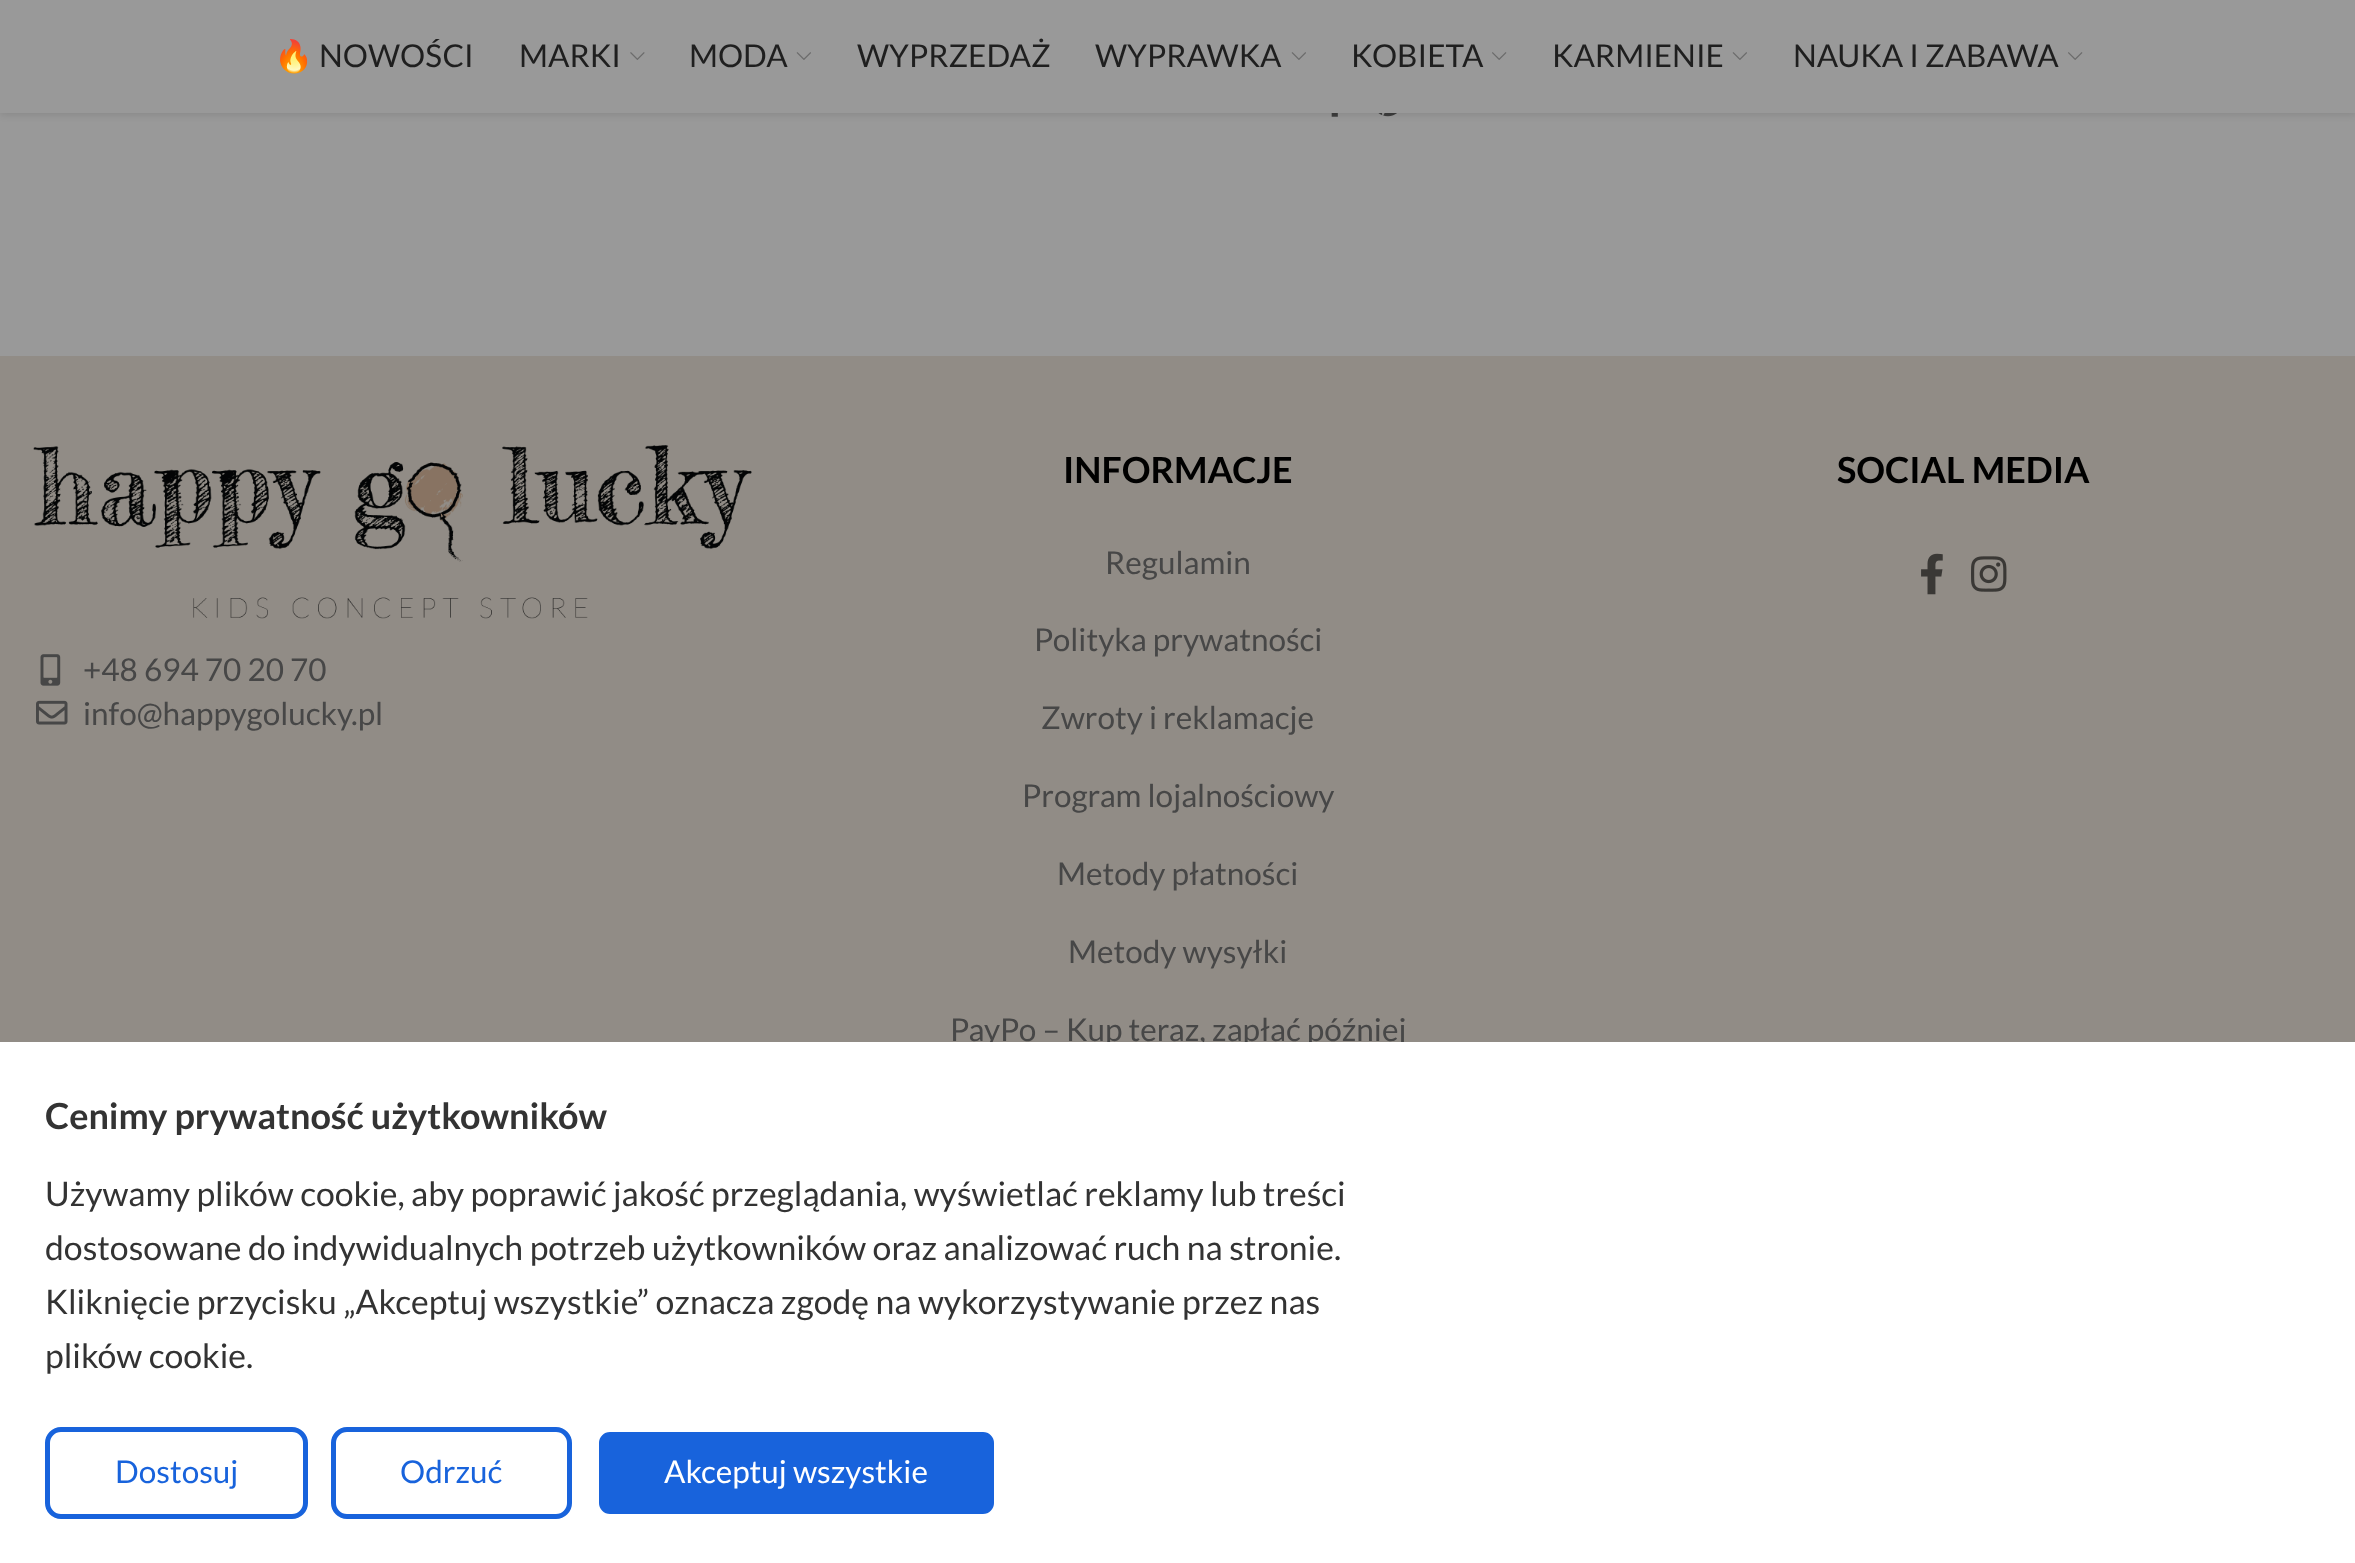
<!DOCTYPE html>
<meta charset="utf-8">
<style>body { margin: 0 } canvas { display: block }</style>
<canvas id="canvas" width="2355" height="1563"></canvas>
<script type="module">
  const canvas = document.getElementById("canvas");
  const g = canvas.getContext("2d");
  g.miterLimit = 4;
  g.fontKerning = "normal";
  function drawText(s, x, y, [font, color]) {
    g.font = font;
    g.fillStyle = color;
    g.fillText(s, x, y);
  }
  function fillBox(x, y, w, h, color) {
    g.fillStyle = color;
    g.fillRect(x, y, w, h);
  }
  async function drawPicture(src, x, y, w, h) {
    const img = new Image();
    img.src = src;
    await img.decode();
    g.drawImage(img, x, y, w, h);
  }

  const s1 = ["31.5px Noto Color Emoji", "#1F1F1F"];
  const s2 = ["31.5px Lato", "#1F1F1F"];
  const s3 = ["bold 36px Lato", "#000000"];
  const s4 = ["31.5px Lato", "#474747"];
  const s5 = ["bold 36px Lato", "#333333"];
  const s6 = ["33.75px Lato", "#333333"];
  const s7 = ["31.5px Lato", "#1863DC"];
  const s8 = ["31.5px Lato", "#FFFFFF"];

  fillBox(0, 0, 2355, 1563, "#999999");
  await drawPicture("pic4.png", 1331, 113, 7, 4);
  await drawPicture("pic5.png", 1378, 113, 19, 4);
  g.fillStyle = "rgba(0, 0, 0, 0.1)";
  g.filter = "blur(3.5px)";
  g.beginPath();
  g.rect(0, 2, 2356, 113);
  g.fill();
  g.filter = "none";
  fillBox(0, 0, 2355, 113, "#999999");
  drawText("🔥", 274, 67, s1);
  drawText("NOWOŚCI", 319, 67, s2);
  drawText("MARKI", 519, 67, s2);
  await drawPicture("pic1.png", 630, 52, 15, 8);
  drawText("MODA", 689, 67, s2);
  await drawPicture("pic2.png", 796, 52, 15, 8);
  drawText("WYPRZEDAŻ", 857, 67, s2);
  drawText("WYPRAWKA", 1095, 67, s2);
  await drawPicture("pic2.png", 1291, 52, 15, 8);
  drawText("KOBIETA", 1351, 67, s2);
  await drawPicture("pic3.png", 1492, 52, 15, 8);
  drawText("KARMIENIE", 1552, 67, s2);
  await drawPicture("pic2.png", 1732, 52, 15, 8);
  drawText("NAUKA I ZABAWA", 1793, 67, s2);
  await drawPicture("pic3.png", 2068, 52, 15, 8);
  fillBox(0, 356, 2355, 686, "#918C86");
  drawText("INFORMACJE", 1063, 483, s3);
  drawText("Regulamin", 1105, 574, s4);
  drawText("Polityka prywatności", 1034, 651, s4);
  drawText("Zwroty i reklamacje", 1041, 729, s4);
  drawText("Program lojalnościowy", 1022, 807, s4);
  drawText("Metody płatności", 1057, 885, s4);
  drawText("Metody wysyłki", 1068, 963, s4);
  drawText("PayPo – Kup teraz, zapłać później", 950, 1041, s4);
  drawText("SOCIAL MEDIA", 1837, 483, s3);
  await drawPicture("pic6.png", 1921, 553, 22, 42);
  await drawPicture("pic7.png", 1971, 556, 36, 36);
  await drawPicture("pic8.png", 33, 445, 719, 174);
  await drawPicture("pic9.png", 40, 654, 21, 32);
  drawText("+48 694 70 20 70", 83, 681, s4);
  await drawPicture("pic10.png", 36, 700, 32, 25);
  drawText("info@happygolucky.pl", 83, 725, s4);
  fillBox(0, 1042, 2355, 521, "#FFFFFF");
  drawText("Cenimy prywatność użytkowników", 45, 1129, s5);
  drawText("Używamy plików cookie, aby poprawić jakość przeglądania, wyświetlać reklamy lub treści", 45, 1206, s6);
  drawText("dostosowane do indywidualnych potrzeb użytkowników oraz analizować ruch na stronie.", 45, 1260, s6);
  drawText("Kliknięcie przycisku „Akceptuj wszystkie” oznacza zgodę na wykorzystywanie przez nas", 45, 1314, s6);
  drawText("plików cookie.", 45, 1368, s6);
  g.beginPath();
  g.roundRect(47.5, 1429.5, 258, 87, 13.5);
  g.strokeStyle = "#1863DC";
  g.lineWidth = 5;
  g.stroke();
  drawText("Dostosuj", 115, 1483, s7);
  g.beginPath();
  g.roundRect(333.5, 1429.5, 236, 87, 13.5);
  g.stroke();
  drawText("Odrzuć", 400, 1483, s7);
  g.beginPath();
  g.roundRect(596.5, 1429.5, 400, 87, 13.5);
  g.fill();
  g.strokeStyle = "#FFFFFF";
  g.stroke();
  drawText("Akceptuj wszystkie", 664, 1483, s8);
</script>
